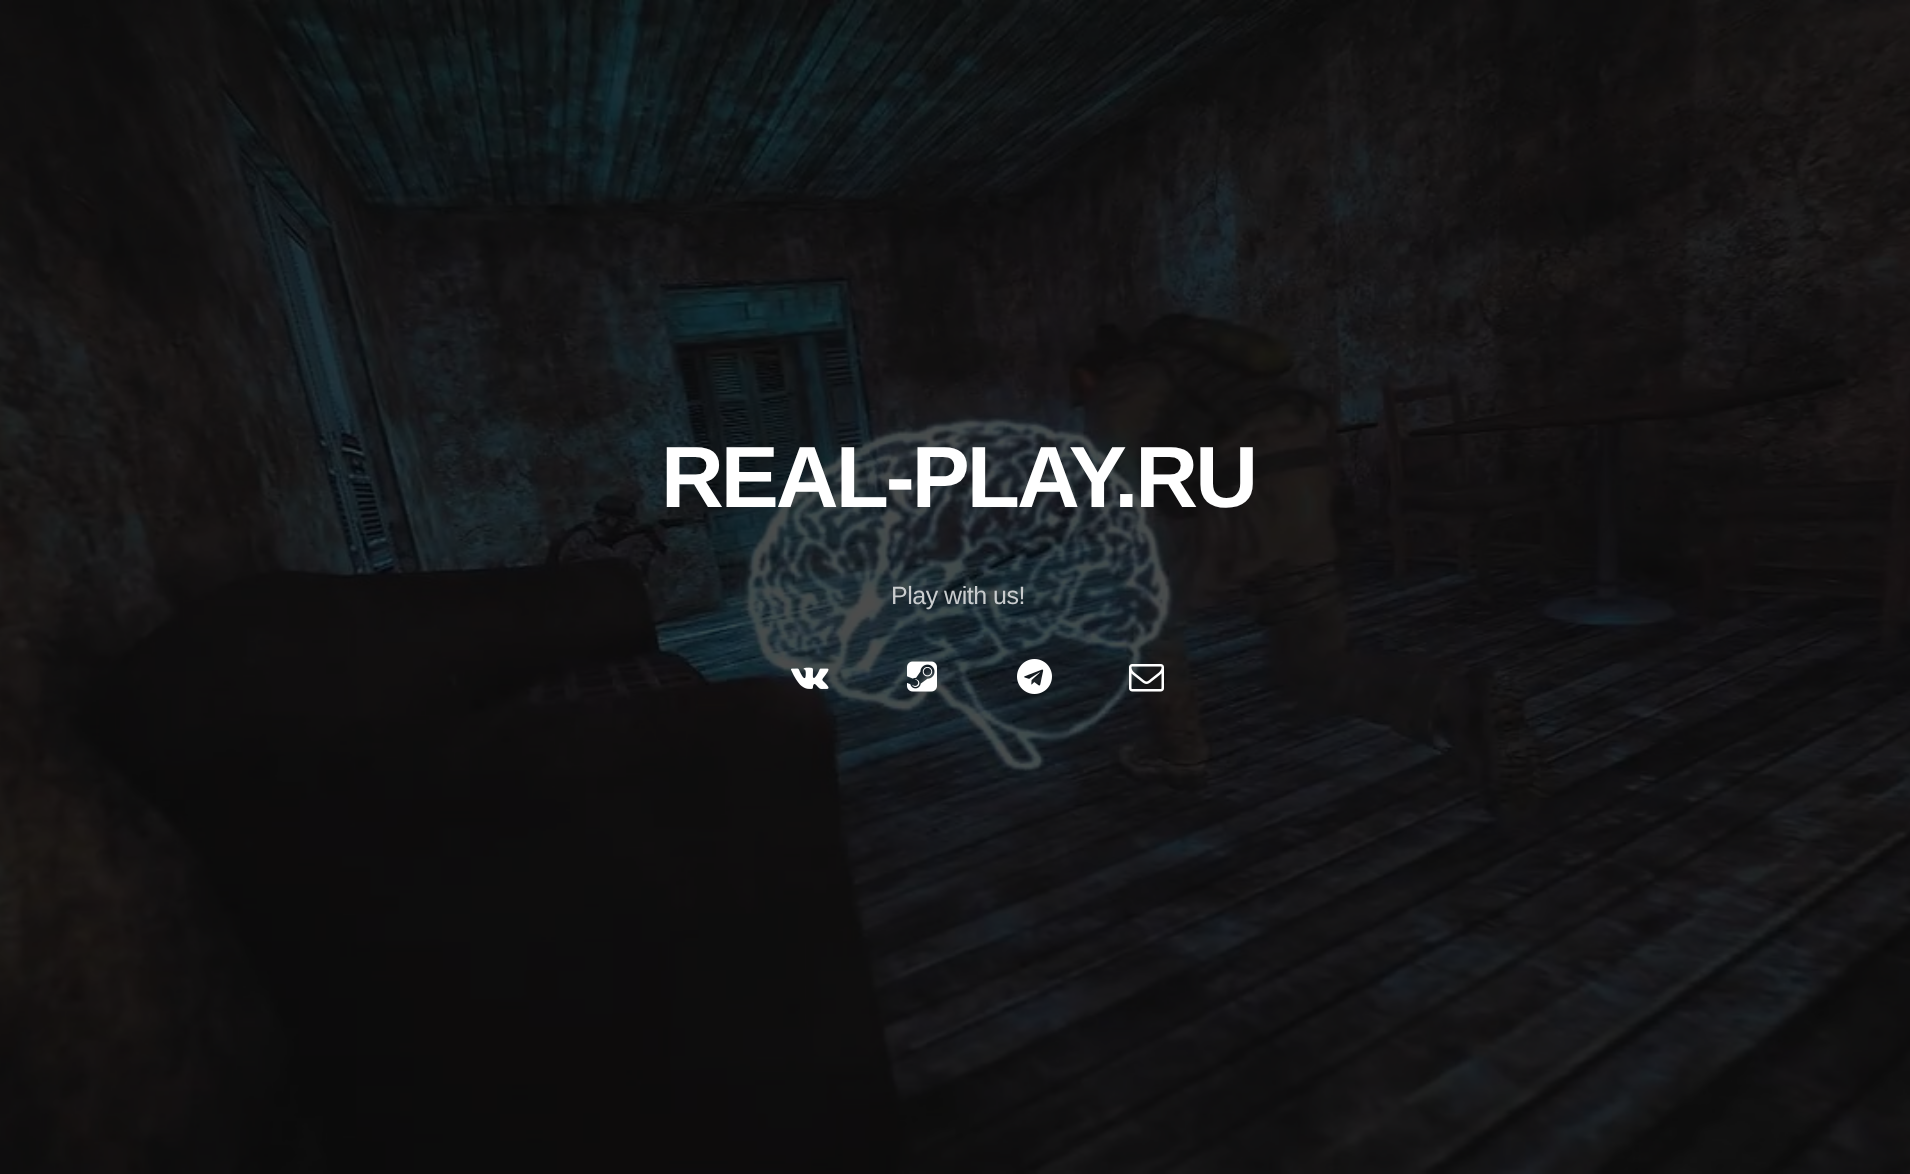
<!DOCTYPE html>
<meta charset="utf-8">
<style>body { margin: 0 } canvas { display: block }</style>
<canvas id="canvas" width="1910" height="1174"></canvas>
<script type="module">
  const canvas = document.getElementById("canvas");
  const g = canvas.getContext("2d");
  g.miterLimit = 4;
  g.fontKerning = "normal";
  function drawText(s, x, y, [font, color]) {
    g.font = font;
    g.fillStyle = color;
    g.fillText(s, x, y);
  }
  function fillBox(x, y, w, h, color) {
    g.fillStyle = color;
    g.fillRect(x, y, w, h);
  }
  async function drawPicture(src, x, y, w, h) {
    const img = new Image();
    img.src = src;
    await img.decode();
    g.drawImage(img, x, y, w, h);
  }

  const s1 = ["bold 87px Liberation Sans", "#FFFFFF"];
  const s2 = ["25px Liberation Sans", "#C9CCCE"];

  fillBox(0, 0, 1910, 1174, "#FFFFFF");
  await drawPicture("pic1.png", 0, 0, 1910, 1174);
  g.letterSpacing = "-3px";
  drawText("REAL-PLAY.RU", 661, 507, s1);
  g.letterSpacing = "-0.5px";
  drawText("Play with us!", 891, 604, s2);
  await drawPicture("pic2.png", 791, 667, 38, 22);
  await drawPicture("pic3.png", 907, 661, 30, 31);
  await drawPicture("pic4.png", 1017, 659, 35, 35);
  await drawPicture("pic5.png", 1129, 664, 35, 28);
</script>
